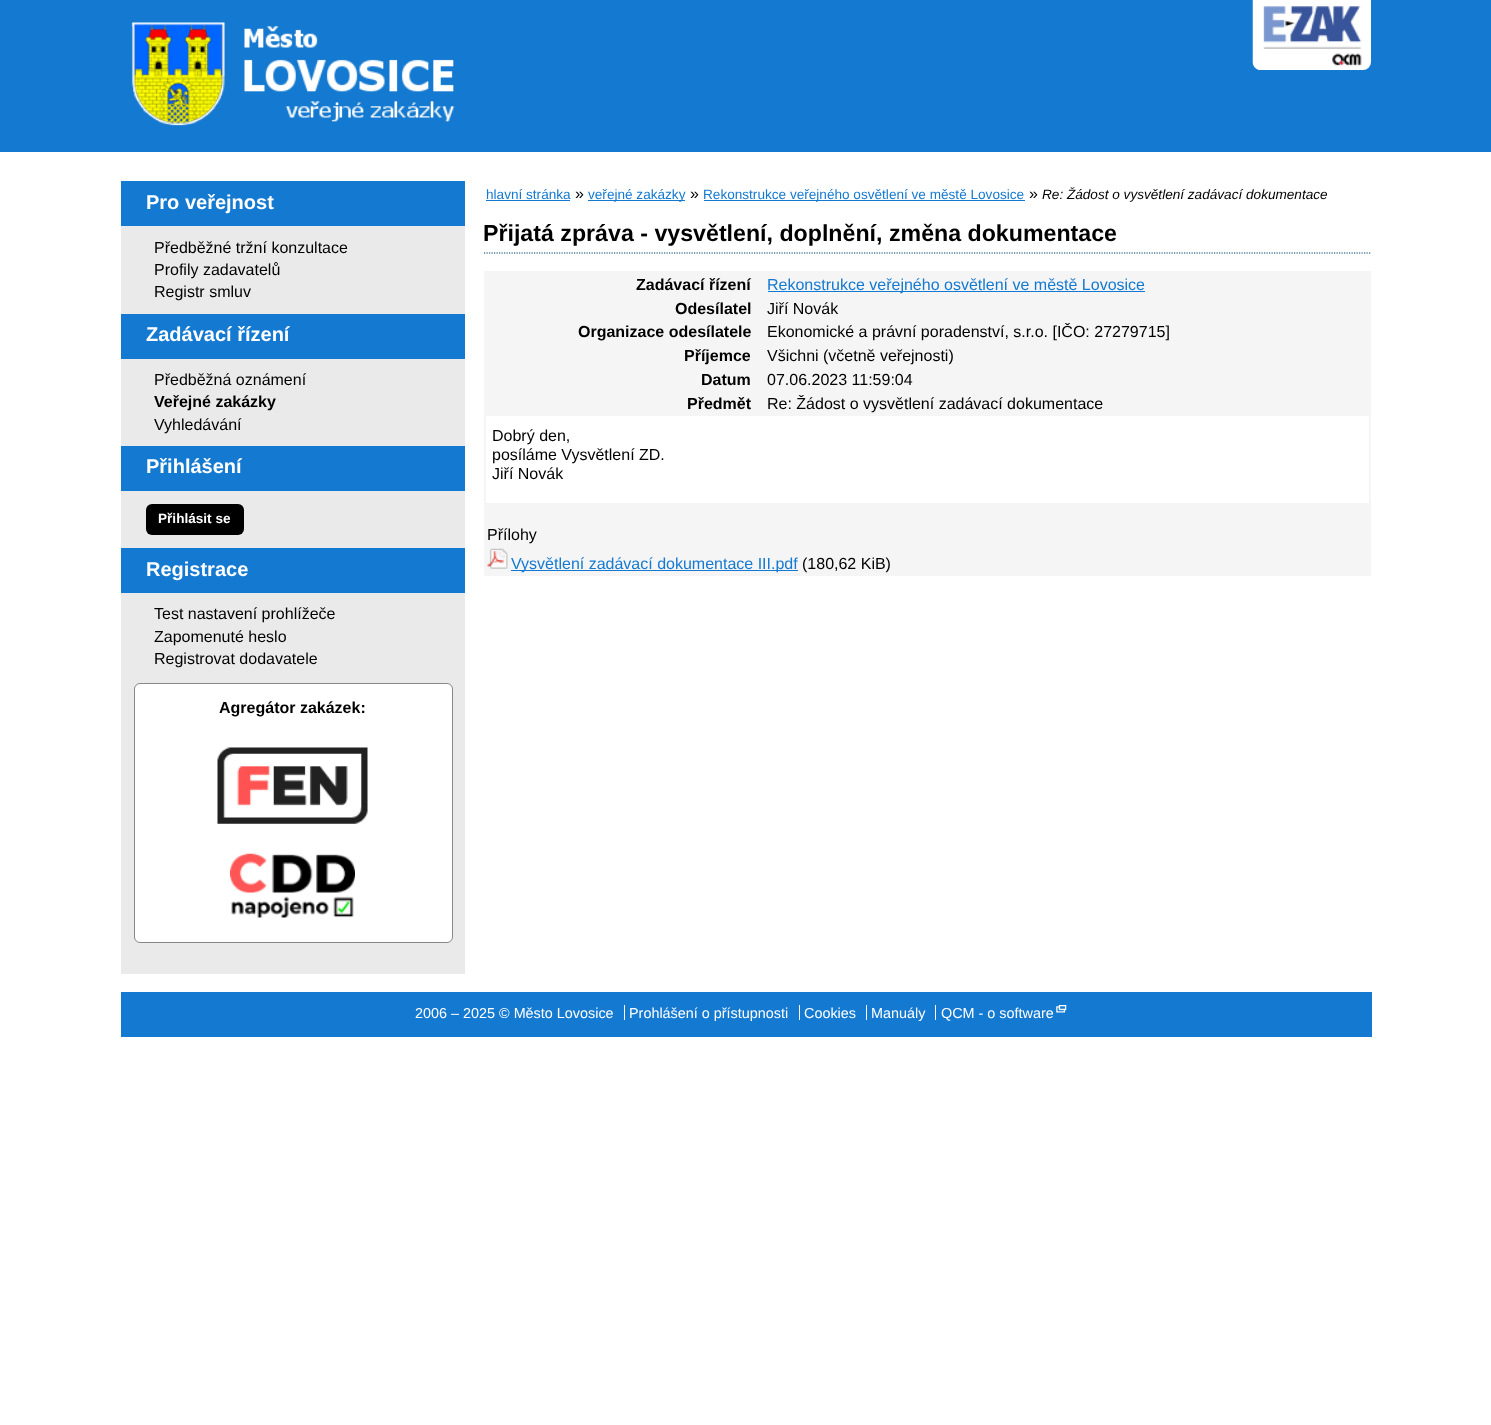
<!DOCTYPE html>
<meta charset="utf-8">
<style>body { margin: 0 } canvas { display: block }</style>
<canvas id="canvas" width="1491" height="1425"></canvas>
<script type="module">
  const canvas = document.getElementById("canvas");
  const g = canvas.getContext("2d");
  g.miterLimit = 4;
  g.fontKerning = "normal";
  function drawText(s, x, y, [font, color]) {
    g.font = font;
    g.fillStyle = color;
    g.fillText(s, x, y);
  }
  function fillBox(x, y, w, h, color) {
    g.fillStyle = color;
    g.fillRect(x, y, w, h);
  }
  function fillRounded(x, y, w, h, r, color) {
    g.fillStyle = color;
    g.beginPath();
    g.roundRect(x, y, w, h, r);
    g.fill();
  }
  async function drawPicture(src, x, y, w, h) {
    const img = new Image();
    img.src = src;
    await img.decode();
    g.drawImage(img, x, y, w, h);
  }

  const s1 = ["bold 20px Liberation Sans", "#FFFFFF"];
  const s2 = ["16px Liberation Sans", "#000000"];
  const s3 = ["bold 16px Liberation Sans", "#000000"];
  const s4 = ["bold 13.6px Liberation Sans", "#FFFFFF"];
  const s5 = ["13.6px Liberation Sans", "#1479D0"];
  const s6 = ["italic 13.6px Liberation Sans", "#000000"];
  const s7 = ["bold 23.2px Liberation Sans", "#000000"];
  const s8 = ["16px Liberation Sans", "#1479D0"];
  const s9 = ["14.4px Liberation Sans", "#FFFFFF"];

  fillBox(0, 0, 1491, 1425, "#FFFFFF");
  fillBox(0, 0, 1491, 152, "#1479D0");
  await drawPicture("pic1.png", 131, 22, 324, 104);
  g.fillStyle = "#FFFFFF";
  g.beginPath();
  g.roundRect(1253, 0, 118, 70, [0, 0, 8, 8]);
  g.fill();
  await drawPicture("pic2.png", 1252, 0, 110, 70);
  fillBox(121, 226, 344, 748, "#EAEAEA");
  fillBox(121, 181, 344, 45, "#1479D0");
  drawText("Pro veřejnost", 146, 209, s1);
  drawText("Předběžné tržní konzultace", 154, 253, s2);
  drawText("Profily zadavatelů", 154, 275, s2);
  drawText("Registr smluv", 154, 297, s2);
  fillBox(121, 314, 344, 45, "#1479D0");
  drawText("Zadávací řízení", 146, 341, s1);
  drawText("Předběžná oznámení", 154, 385, s2);
  drawText("Veřejné zakázky", 154, 407, s3);
  drawText("Vyhledávání", 154, 430, s2);
  fillBox(121, 446, 344, 45, "#1479D0");
  drawText("Přihlášení", 146, 473, s1);
  fillRounded(146, 504, 98, 31, 6, "#000000");
  drawText("Přihlásit se", 158, 523, s4);
  fillBox(121, 548, 344, 45, "#1479D0");
  drawText("Registrace", 146, 576, s1);
  drawText("Test nastavení prohlížeče", 154, 619, s2);
  drawText("Zapomenuté heslo", 154, 642, s2);
  drawText("Registrovat dodavatele", 154, 664, s2);
  g.fillStyle = "#FFFFFF";
  g.beginPath();
  g.roundRect(134.5, 683.5, 318, 259, 5.5);
  g.fill();
  g.strokeStyle = "#888888";
  g.stroke();
  drawText("Agregátor zakázek:", 219, 713, s3);
  await drawPicture("pic3.png", 217, 747, 151, 77);
  await drawPicture("pic4.png", 230, 853, 125, 65);
  drawText("hlavní stránka", 486, 199, s5);
  fillBox(486, 200, 84, 1, "#1479D0");
  drawText("»", 575, 199, s2);
  fillBox(588, 200, 97, 1, "#1479D0");
  drawText("veřejné zakázky", 588, 199, s5);
  drawText("»", 690, 199, s2);
  fillBox(704, 200, 321, 1, "#1479D0");
  drawText("Rekonstrukce veřejného osvětlení ve městě Lovosice", 703, 199, s5);
  drawText("»", 1029, 199, s2);
  drawText("Re: Žádost o vysvětlení zadávací dokumentace", 1042, 199, s6);
  g.beginPath();
  g.moveTo(484, 253);
  g.lineTo(1371, 253);
  g.strokeStyle = "#024569";
  g.lineWidth = 1.2;
  g.setLineDash([1.25, 1.25]);
  g.stroke();
  drawText("Přijatá zpráva - vysvětlení, doplnění, změna dokumentace", 483, 241, s7);
  fillBox(484, 271, 887, 305, "#F5F5F5");
  drawText("Zadávací řízení", 636, 290, s3);
  fillBox(768, 291, 377, 1, "#1479D0");
  drawText("Rekonstrukce veřejného osvětlení ve městě Lovosice", 767, 290, s8);
  drawText("Odesílatel", 675, 314, s3);
  drawText("Jiří Novák", 767, 314, s2);
  drawText("Organizace odesílatele", 578, 337, s3);
  drawText("Ekonomické a právní poradenství, s.r.o. [IČO: 27279715]", 767, 337, s2);
  drawText("Příjemce", 684, 361, s3);
  drawText("Všichni (včetně veřejnosti)", 767, 361, s2);
  drawText("Datum", 701, 385, s3);
  drawText("07.06.2023 11:59:04", 767, 385, s2);
  drawText("Předmět", 687, 409, s3);
  drawText("Re: Žádost o vysvětlení zadávací dokumentace", 767, 409, s2);
  fillBox(486, 416, 883, 87, "#FFFFFF");
  drawText("Dobrý den,", 492, 441, s2);
  drawText("posíláme Vysvětlení ZD.", 492, 460, s2);
  drawText("Jiří Novák", 492, 479, s2);
  drawText("Přílohy", 487, 540, s2);
  await drawPicture("pic5.png", 487, 548, 21, 21);
  fillBox(511, 570, 287, 1, "#1479D0");
  drawText("Vysvětlení zadávací dokumentace III.pdf", 511, 569, s8);
  drawText("(180,62 KiB)", 802, 569, s2);
  fillBox(121, 992, 1251, 45, "#1479D0");
  drawText("2006 – 2025 © Město Lovosice", 415, 1018, s9);
  fillBox(624, 1005, 1, 15, "#FFFFFF");
  drawText("Prohlášení o přístupnosti", 629, 1018, s9);
  fillBox(799, 1005, 1, 15, "#FFFFFF");
  drawText("Cookies", 804, 1018, s9);
  fillBox(866, 1005, 1, 15, "#FFFFFF");
  drawText("Manuály", 871, 1018, s9);
  fillBox(935, 1005, 1, 15, "#FFFFFF");
  drawText("QCM - o software", 941, 1018, s9);
  await drawPicture("pic6.png", 1056, 1005, 11, 8);
</script>
